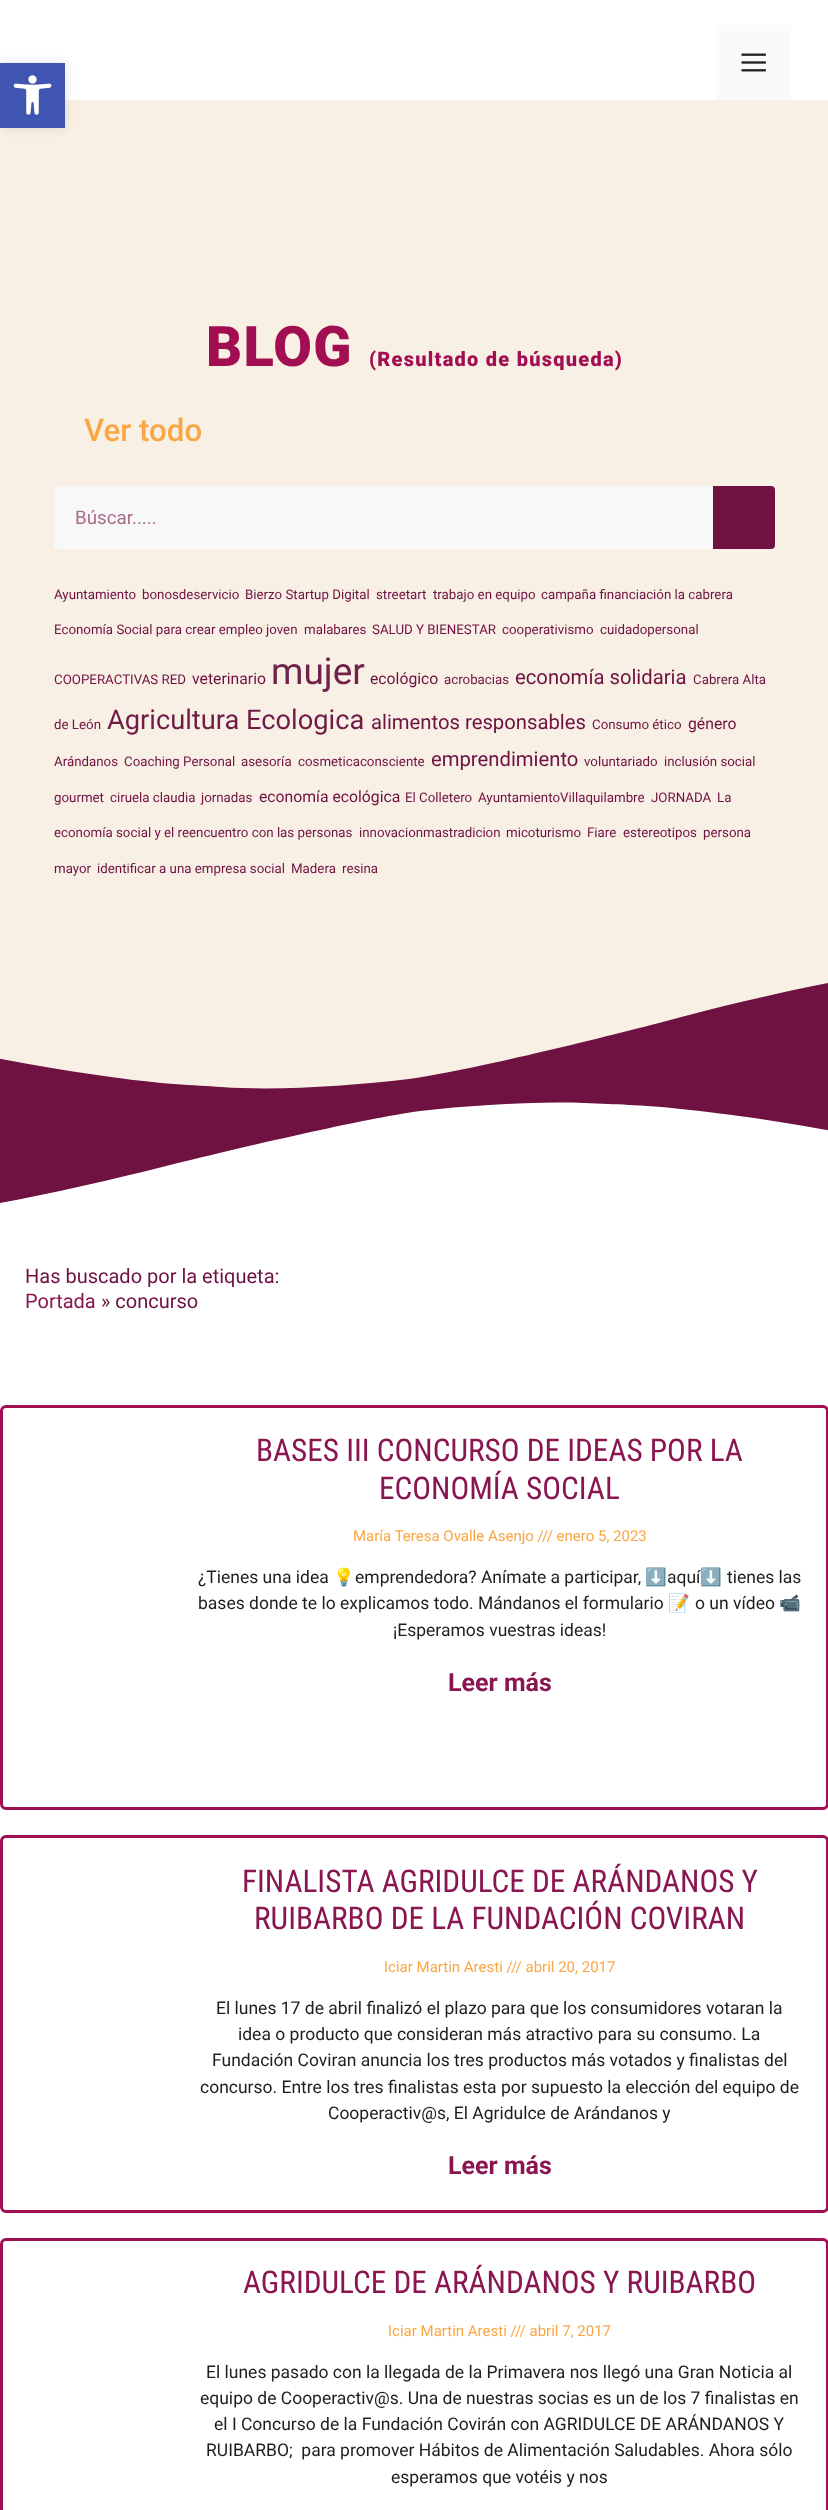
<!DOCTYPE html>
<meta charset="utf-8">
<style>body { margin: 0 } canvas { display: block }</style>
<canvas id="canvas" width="828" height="2510"></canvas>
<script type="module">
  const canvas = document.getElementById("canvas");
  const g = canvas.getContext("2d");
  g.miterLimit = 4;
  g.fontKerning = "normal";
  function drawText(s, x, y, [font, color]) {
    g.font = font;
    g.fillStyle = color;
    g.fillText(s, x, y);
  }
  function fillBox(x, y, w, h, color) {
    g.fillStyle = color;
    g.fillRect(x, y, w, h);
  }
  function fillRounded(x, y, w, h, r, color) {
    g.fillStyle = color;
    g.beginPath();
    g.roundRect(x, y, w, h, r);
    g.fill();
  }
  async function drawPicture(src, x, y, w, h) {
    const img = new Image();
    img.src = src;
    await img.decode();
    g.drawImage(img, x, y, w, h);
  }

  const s1 = ["900 56px Roboto", "#A10E51"];
  const s2 = ["900 20px Roboto", "#A10E51"];
  const s3 = ["500 31.25px Roboto", "#FAA644"];
  const s4 = ["18.75px Roboto", "#A66E8B"];
  const s5 = ["13.3px Roboto", "#6F1242"];
  const s6 = ["15.75px Roboto", "#6F1242"];
  const s7 = ["37px Roboto", "#70224A"];
  const s8 = ["20.25px Roboto", "#6F1242"];
  const s9 = ["27.25px Roboto", "#6F1B46"];
  const s10 = ["20px Roboto", "#6F1242"];
  const s11 = ["20px Roboto", "#891650"];
  const s12 = ["31.25px Roboto Condensed", "#891650"];
  const s13 = ["15px Roboto", "#FAA644"];
  const s14 = ["17.5px Roboto", "#1E1E1E"];
  const s15 = ["17.5px Noto Color Emoji", "#1E1E1E"];
  const s16 = ["bold 25px Roboto", "#891650"];

  fillBox(0, 0, 828, 2510, "#FFFFFF");
  fillBox(0, 100, 828, 989, "#F8F0E5");
  g.fillStyle = "rgba(0, 0, 0, 0.1)";
  g.filter = "blur(6px)";
  g.beginPath();
  g.rect(0, 63, 65, 65);
  g.fill();
  g.filter = "none";
  fillBox(0, 63, 65, 65, "#4054B2");
  await drawPicture("pic1.png", 13, 75, 39, 40);
  fillBox(716, 25, 75, 75, "#FAFAFA");
  await drawPicture("pic2.png", 741, 53, 25, 19);
  g.letterSpacing = "1.25px";
  drawText("BLOG", 206, 366, s1);
  drawText("(Resultado de búsqueda)", 369, 366, s2);
  g.letterSpacing = "0px";
  drawText("Ver todo", 84, 441, s3);
  fillRounded(54, 486, 721, 63, 4, "#F8F8F8");
  drawText("Búscar.....", 75, 524, s4);
  g.fillStyle = "#6F1242";
  g.beginPath();
  g.roundRect(713, 486, 62, 63, [0, 4, 4, 0]);
  g.fill();
  drawText("Ayuntamiento", 54, 599, s5);
  drawText("bonosdeservicio", 142, 599, s5);
  drawText("Bierzo Startup Digital", 245, 599, s5);
  drawText("streetart", 376, 599, s5);
  drawText("trabajo en equipo", 433, 599, s5);
  drawText("campaña financiación la cabrera", 541, 599, s5);
  drawText("Economía Social para crear empleo joven", 54, 634, s5);
  drawText("malabares", 304, 634, s5);
  drawText("SALUD Y BIENESTAR", 372, 634, s5);
  drawText("cooperativismo", 502, 634, s5);
  drawText("cuidadopersonal", 600, 634, s5);
  drawText("COOPERACTIVAS RED", 54, 684, s5);
  drawText("veterinario", 192, 684, s6);
  drawText("mujer", 271, 684, s7);
  drawText("ecológico", 370, 684, s6);
  drawText("acrobacias", 444, 684, s5);
  drawText("economía solidaria", 515, 684, s8);
  drawText("Cabrera Alta", 693, 684, s5);
  drawText("de León", 54, 729, s5);
  drawText("Agricultura Ecologica", 107, 729, s9);
  drawText("alimentos responsables", 371, 729, s8);
  drawText("Consumo ético", 592, 729, s5);
  drawText("género", 688, 729, s6);
  drawText("Arándanos", 54, 766, s5);
  drawText("Coaching Personal", 124, 766, s5);
  drawText("asesoría", 241, 766, s5);
  drawText("cosmeticaconsciente", 298, 766, s5);
  drawText("emprendimiento", 431, 766, s8);
  drawText("voluntariado", 584, 766, s5);
  drawText("inclusión social", 664, 766, s5);
  drawText("gourmet", 54, 802, s5);
  drawText("ciruela claudia", 110, 802, s5);
  drawText("jornadas", 201, 802, s5);
  drawText("economía ecológica", 259, 802, s6);
  drawText("El Colletero", 405, 802, s5);
  drawText("AyuntamientoVillaquilambre", 478, 802, s5);
  drawText("JORNADA", 651, 802, s5);
  drawText("La", 717, 802, s5);
  drawText("economía social y el reencuentro con las personas", 54, 837, s5);
  drawText("innovacionmastradicion", 359, 837, s5);
  drawText("micoturismo", 506, 837, s5);
  drawText("Fiare", 587, 837, s5);
  drawText("estereotipos", 623, 837, s5);
  drawText("persona", 703, 837, s5);
  drawText("mayor", 54, 873, s5);
  drawText("identificar a una empresa social", 97, 873, s5);
  drawText("Madera", 291, 873, s5);
  drawText("resina", 342, 873, s5);
  g.beginPath();
  g.moveTo(221, 1087);
  g.bezierCurveTo(277, 1091, 349, 1086, 409, 1079);
  g.bezierCurveTo(467, 1071, 585, 1042, 659, 1023);
  g.bezierCurveTo(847, 972, 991, 953, 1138, 945);
  g.bezierCurveTo(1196, 942, 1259, 940, 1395, 949);
  g.bezierCurveTo(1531, 958, 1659, 989, 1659, 989);
  g.lineTo(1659, 1097);
  g.lineTo(-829, 1097);
  g.lineTo(-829, 1050);
  g.bezierCurveTo(-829, 1050, -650, 999, -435, 1002);
  g.bezierCurveTo(-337, 1003, -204, 1012, -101, 1037);
  g.bezierCurveTo(-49, 1050, 28, 1065, 97, 1075);
  g.bezierCurveTo(164, 1085, 195, 1085, 221, 1087);
  g.closePath();
  g.fill();
  g.beginPath();
  g.moveTo(608, 1104);
  g.bezierCurveTo(552, 1100, 480, 1104, 420, 1111);
  g.bezierCurveTo(362, 1119, 244, 1147, 170, 1165);
  g.bezierCurveTo(-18, 1213, -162, 1232, -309, 1240);
  g.bezierCurveTo(-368, 1243, -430, 1245, -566, 1236);
  g.bezierCurveTo(-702, 1227, -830, 1197, -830, 1197);
  g.lineTo(-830, 1094);
  g.lineTo(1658, 1094);
  g.lineTo(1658, 1139);
  g.bezierCurveTo(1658, 1139, 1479, 1188, 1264, 1185);
  g.bezierCurveTo(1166, 1184, 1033, 1175, 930, 1151);
  g.bezierCurveTo(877, 1139, 800, 1124, 732, 1115);
  g.bezierCurveTo(664, 1106, 634, 1105, 608, 1104);
  g.closePath();
  g.fill();
  drawText("Has buscado por la etiqueta:", 25, 1283, s10);
  drawText("Portada", 25, 1308, s11);
  drawText("» concurso", 101, 1308, s10);
  g.beginPath();
  g.roundRect(1.5, 1406.5, 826, 402, 4.5);
  g.strokeStyle = "#A10E51";
  g.lineWidth = 3;
  g.stroke();
  drawText("BASES III CONCURSO DE IDEAS POR LA", 256, 1461, s12);
  drawText("ECONOMÍA SOCIAL", 379, 1499, s12);
  drawText("María Teresa Ovalle Asenjo /// enero 5, 2023", 353, 1541, s13);
  drawText("¿Tienes una idea", 198, 1583, s14);
  drawText("💡", 333, 1583, s15);
  drawText("emprendedora? Anímate a participar,", 355, 1583, s14);
  drawText("⬇️", 645, 1583, s15);
  drawText("aquí", 667, 1583, s14);
  drawText("⬇️", 700, 1583, s15);
  drawText("tienes las", 727, 1583, s14);
  drawText("bases donde te lo explicamos todo. Mándanos el formulario", 198, 1609, s14);
  drawText("📝", 668, 1609, s15);
  drawText("o un vídeo", 695, 1609, s14);
  drawText("📹", 779, 1609, s15);
  drawText("¡Esperamos vuestras ideas!", 393, 1636, s14);
  drawText("Leer más", 448, 1691, s16);
  g.beginPath();
  g.roundRect(1.5, 1836.5, 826, 375, 4.5);
  g.stroke();
  drawText("FINALISTA AGRIDULCE DE ARÁNDANOS Y", 242, 1892, s12);
  drawText("RUIBARBO DE LA FUNDACIÓN COVIRAN", 254, 1929, s12);
  drawText("Iciar Martin Aresti /// abril 20, 2017", 384, 1972, s13);
  drawText("El lunes 17 de abril finalizó el plazo para que los consumidores votaran la", 216, 2014, s14);
  drawText("idea o producto que consideran más atractivo para su consumo. La", 238, 2040, s14);
  drawText("Fundación Coviran anuncia los tres productos más votados y finalistas del", 212, 2066, s14);
  drawText("concurso. Entre los tres finalistas esta por supuesto la elección del equipo de", 200, 2093, s14);
  drawText("Cooperactiv@s, El Agridulce de Arándanos y", 328, 2119, s14);
  drawText("Leer más", 448, 2174, s16);
  g.beginPath();
  g.roundRect(1.5, 2239.5, 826, 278, 4.5);
  g.stroke();
  drawText("AGRIDULCE DE ARÁNDANOS Y RUIBARBO", 243, 2293, s12);
  drawText("Iciar Martin Aresti /// abril 7, 2017", 388, 2336, s13);
  drawText("El lunes pasado con la llegada de la Primavera nos llegó una Gran Noticia al", 206, 2378, s14);
  drawText("equipo de Cooperactiv@s. Una de nuestras socias es un de los 7 finalistas en", 200, 2404, s14);
  drawText("el I Concurso de la Fundación Covirán con AGRIDULCE DE ARÁNDANOS Y", 214, 2430, s14);
  drawText("RUIBARBO;  para promover Hábitos de Alimentación Saludables. Ahora sólo", 206, 2456, s14);
  drawText("esperamos que votéis y nos", 391, 2483, s14);
</script>
